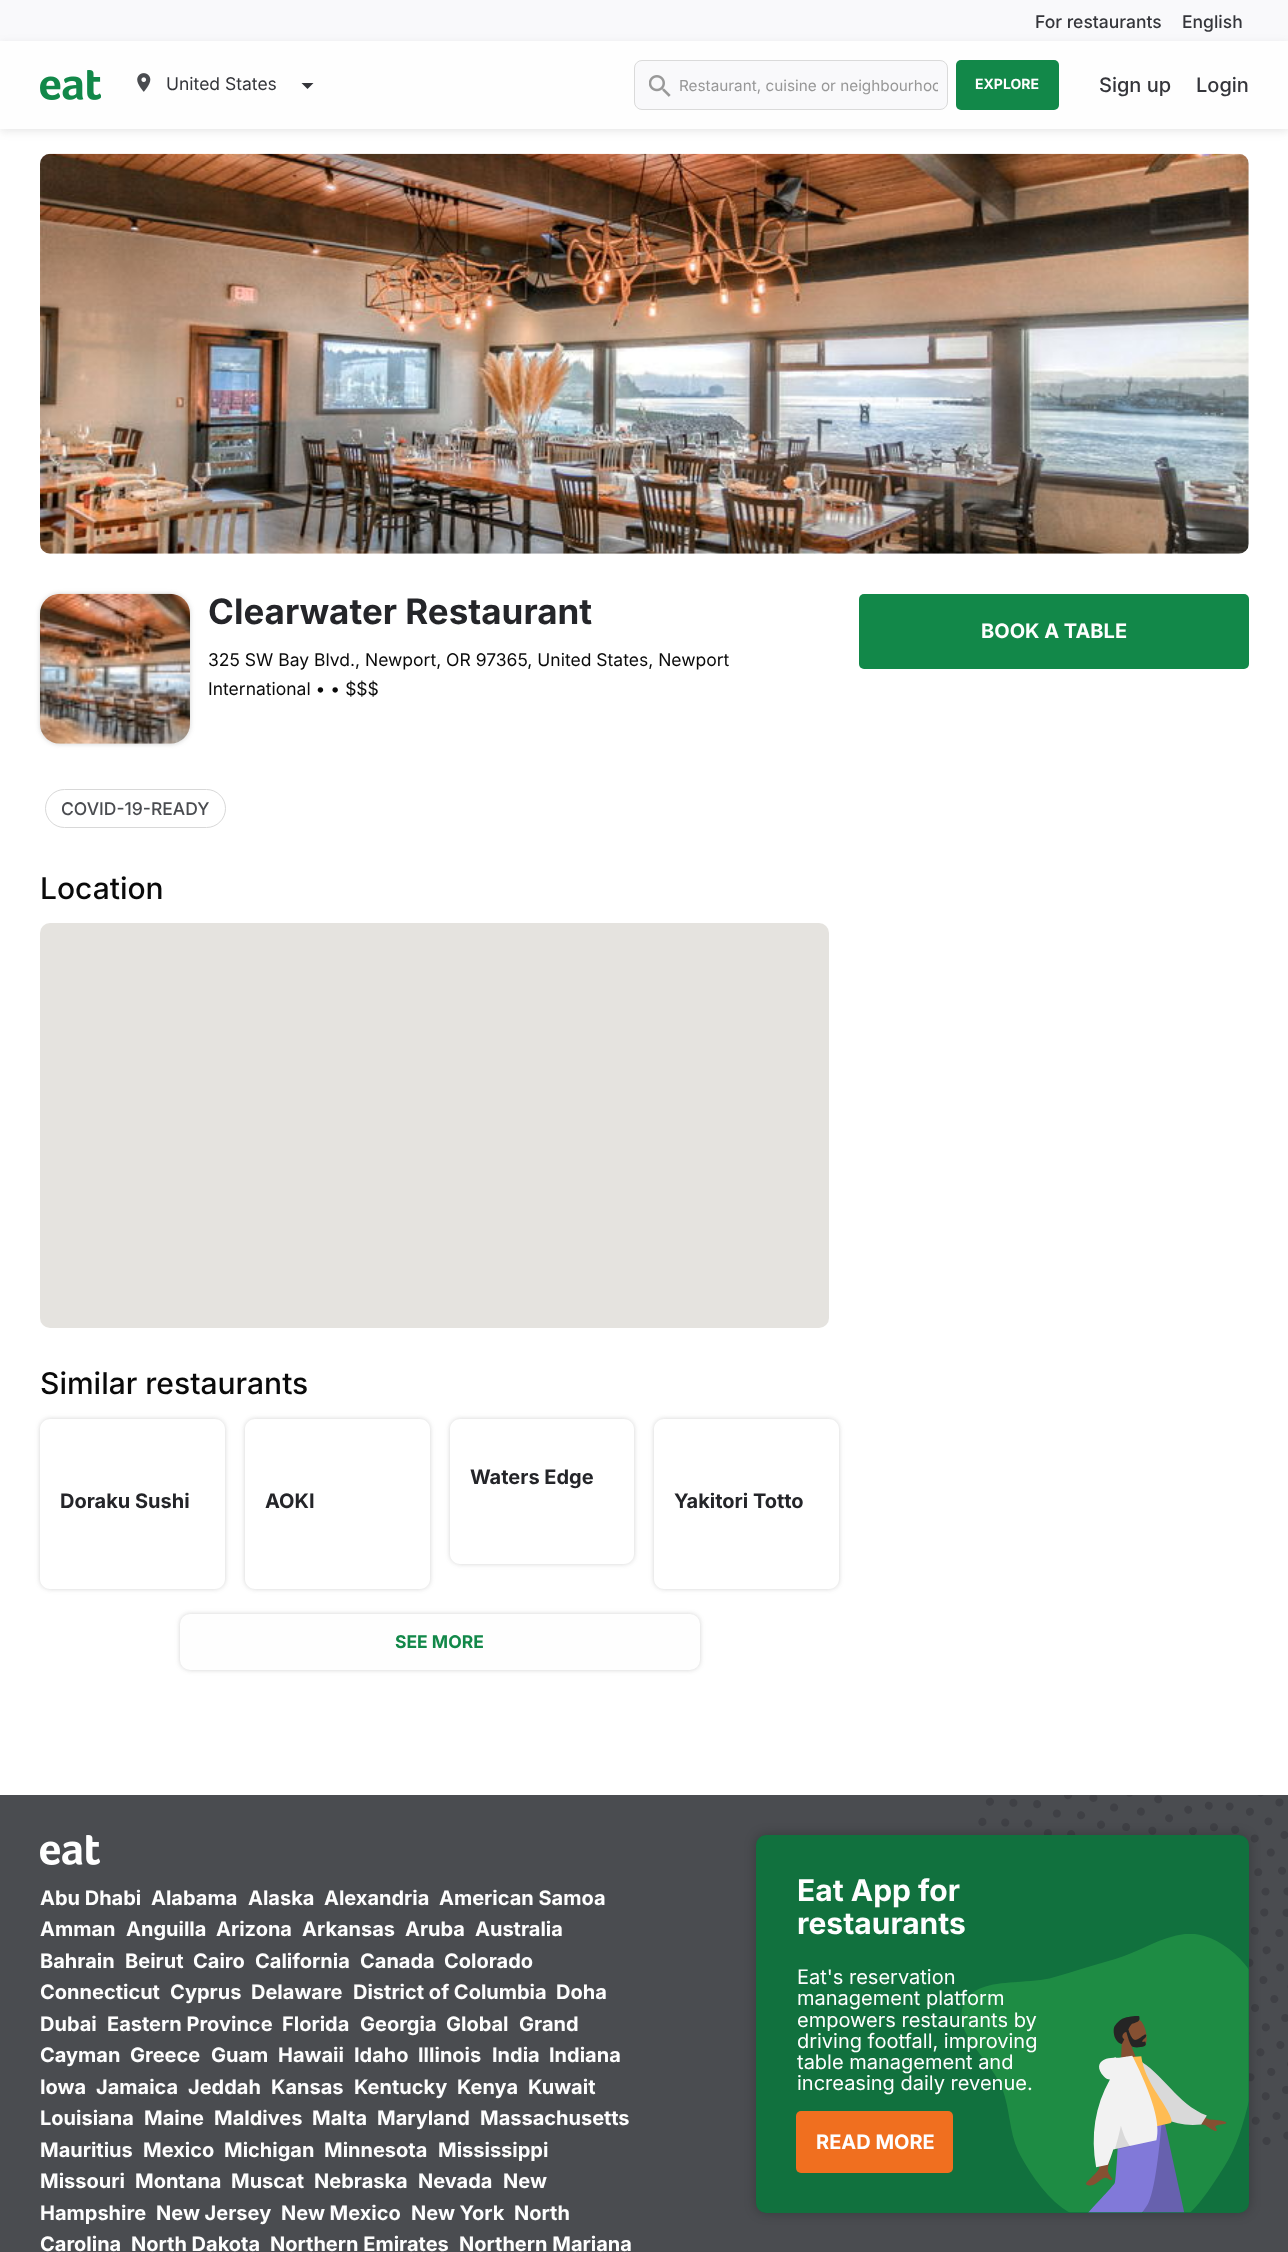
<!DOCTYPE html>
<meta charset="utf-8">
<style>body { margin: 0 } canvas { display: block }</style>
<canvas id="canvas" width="1288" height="2252"></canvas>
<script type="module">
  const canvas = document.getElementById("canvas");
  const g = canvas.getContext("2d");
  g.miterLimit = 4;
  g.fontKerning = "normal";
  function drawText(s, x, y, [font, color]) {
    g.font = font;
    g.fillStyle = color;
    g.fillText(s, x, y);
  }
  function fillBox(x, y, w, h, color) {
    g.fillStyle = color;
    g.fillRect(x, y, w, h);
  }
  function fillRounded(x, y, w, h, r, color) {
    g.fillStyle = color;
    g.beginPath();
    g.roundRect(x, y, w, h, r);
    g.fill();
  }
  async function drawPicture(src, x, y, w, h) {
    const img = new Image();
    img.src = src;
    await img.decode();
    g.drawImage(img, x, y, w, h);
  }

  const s1 = ["500 17.5px Inter", "#34353A"];
  const s2 = ["17.5px Inter", "#34353A"];
  const s3 = ["15.3px Inter", "#979797"];
  const s4 = ["bold 14px Inter", "#FEFEFE"];
  const s5 = ["500 20px Inter", "#34353A"];
  const s6 = ["bold 35px Inter", "#242529"];
  const s7 = ["17.5px Inter", "#0A0A0A"];
  const s8 = ["500 17.5px Inter", "#4A4C50"];
  const s9 = ["500 30px Inter", "#0A0A0A"];
  const s10 = ["bold 20px Inter", "#242529"];
  const s11 = ["bold 17.5px Inter", "#128849"];
  const s12 = ["bold 20px Inter", "#FEFEFE"];
  const s13 = ["bold 30px Inter", "#FEFEFE"];
  const s14 = ["20px Inter", "#FEFEFE"];

  fillBox(0, 0, 1288, 2252, "#FFFFFF");
  fillBox(0, 0, 1288, 41, "#F9F9FB");
  g.fillStyle = "rgba(80, 80, 80, 0.15)";
  g.filter = "blur(5px)";
  g.beginPath();
  g.rect(0, 44, 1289, 87);
  g.fill();
  g.filter = "none";
  drawText("For restaurants", 1035, 28, s1);
  drawText("English", 1182, 28, s1);
  fillBox(0, 41, 1288, 88, "#FEFEFE");
  await drawPicture("pic1.png", 40, 70, 61, 30);
  await drawPicture("pic2.png", 137, 73, 14, 19);
  drawText("United States", 166, 90, s2);
  g.save();
  g.beginPath();
  g.rect(301, 83, 13, 6);
  g.clip();
  g.beginPath();
  g.moveTo(301, 82.5);
  g.lineTo(307.5, 89);
  g.lineTo(314, 82.5);
  g.closePath();
  g.fill();
  g.restore();
  g.fillStyle = "#F9F9FB";
  g.beginPath();
  g.roundRect(634.5, 60.5, 313, 49, 7.5);
  g.fill();
  g.strokeStyle = "#DADADA";
  g.stroke();
  await drawPicture("pic3.png", 649, 75, 22, 22);
  g.save();
  g.beginPath();
  g.rect(679, 76, 259, 19);
  g.clip();
  drawText("Restaurant, cuisine or neighbourhoo", 679, 91, s3);
  g.restore();
  fillRounded(956, 60, 103, 50, 5, "#128849");
  drawText("EXPLORE", 975, 89, s4);
  drawText("Sign up", 1099, 92, s5);
  drawText("Login", 1196, 92, s5);
  await drawPicture("pic4.png", 40, 153, 1209, 401);
  g.fillStyle = "rgba(80, 80, 80, 0.25)";
  g.filter = "blur(2.5px)";
  g.beginPath();
  g.roundRect(40, 594, 150, 150, 20);
  g.fill();
  g.filter = "none";
  await drawPicture("pic5.png", 40, 593, 150, 151);
  drawText("Clearwater Restaurant", 208, 624, s6);
  drawText("325 SW Bay Blvd., Newport, OR 97365, United States, Newport", 208, 666, s7);
  drawText("International • • $$$", 208, 695, s7);
  g.beginPath();
  g.roundRect(45.5, 789.5, 180, 38, 19);
  g.strokeStyle = "#D8D8D8";
  g.stroke();
  drawText("COVID-19-READY", 61, 815, s8);
  drawText("Location", 40, 899, s9);
  fillRounded(40, 923, 789, 405, 10, "#E5E3DF");
  drawText("Similar restaurants", 40, 1394, s9);
  g.save();
  g.beginPath();
  g.moveTo(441, 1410);
  g.lineTo(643, 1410);
  g.lineTo(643, 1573);
  g.lineTo(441, 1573);
  g.closePath();
  g.moveTo(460, 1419);
  g.lineTo(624, 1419);
  g.bezierCurveTo(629.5, 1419, 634, 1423.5, 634, 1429);
  g.lineTo(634, 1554);
  g.bezierCurveTo(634, 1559.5, 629.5, 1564, 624, 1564);
  g.lineTo(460, 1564);
  g.bezierCurveTo(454.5, 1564, 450, 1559.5, 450, 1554);
  g.lineTo(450, 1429);
  g.bezierCurveTo(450, 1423.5, 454.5, 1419, 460, 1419);
  g.closePath();
  g.clip("evenodd");
  g.fillStyle = "rgba(80, 80, 80, 0.25)";
  g.filter = "blur(2.5px)";
  g.beginPath();
  g.roundRect(450, 1419, 184, 145, 10);
  g.fill();
  g.filter = "none";
  g.restore();
  drawText("Waters Edge", 470, 1484, s10);
  g.save();
  g.beginPath();
  g.moveTo(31, 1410);
  g.lineTo(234, 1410);
  g.lineTo(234, 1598);
  g.lineTo(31, 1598);
  g.closePath();
  g.moveTo(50, 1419);
  g.lineTo(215, 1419);
  g.bezierCurveTo(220.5, 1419, 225, 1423.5, 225, 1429);
  g.lineTo(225, 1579);
  g.bezierCurveTo(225, 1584.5, 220.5, 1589, 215, 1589);
  g.lineTo(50, 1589);
  g.bezierCurveTo(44.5, 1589, 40, 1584.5, 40, 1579);
  g.lineTo(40, 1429);
  g.bezierCurveTo(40, 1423.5, 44.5, 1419, 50, 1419);
  g.closePath();
  g.clip("evenodd");
  g.fillStyle = "rgba(80, 80, 80, 0.25)";
  g.filter = "blur(2.5px)";
  g.beginPath();
  g.roundRect(40, 1419, 185, 170, 10);
  g.fill();
  g.filter = "none";
  g.restore();
  drawText("Doraku Sushi", 60, 1508, s10);
  g.save();
  g.beginPath();
  g.moveTo(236, 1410);
  g.lineTo(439, 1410);
  g.lineTo(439, 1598);
  g.lineTo(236, 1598);
  g.closePath();
  g.moveTo(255, 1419);
  g.lineTo(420, 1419);
  g.bezierCurveTo(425.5, 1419, 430, 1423.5, 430, 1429);
  g.lineTo(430, 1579);
  g.bezierCurveTo(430, 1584.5, 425.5, 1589, 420, 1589);
  g.lineTo(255, 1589);
  g.bezierCurveTo(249.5, 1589, 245, 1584.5, 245, 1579);
  g.lineTo(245, 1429);
  g.bezierCurveTo(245, 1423.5, 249.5, 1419, 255, 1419);
  g.closePath();
  g.clip("evenodd");
  g.fillStyle = "rgba(80, 80, 80, 0.25)";
  g.filter = "blur(2.5px)";
  g.beginPath();
  g.roundRect(245, 1419, 185, 170, 10);
  g.fill();
  g.filter = "none";
  g.restore();
  drawText("AOKI", 265, 1508, s10);
  g.save();
  g.beginPath();
  g.moveTo(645, 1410);
  g.lineTo(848, 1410);
  g.lineTo(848, 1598);
  g.lineTo(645, 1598);
  g.closePath();
  g.moveTo(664, 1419);
  g.lineTo(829, 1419);
  g.bezierCurveTo(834.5, 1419, 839, 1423.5, 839, 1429);
  g.lineTo(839, 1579);
  g.bezierCurveTo(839, 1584.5, 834.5, 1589, 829, 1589);
  g.lineTo(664, 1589);
  g.bezierCurveTo(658.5, 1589, 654, 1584.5, 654, 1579);
  g.lineTo(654, 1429);
  g.bezierCurveTo(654, 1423.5, 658.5, 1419, 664, 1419);
  g.closePath();
  g.clip("evenodd");
  g.fillStyle = "rgba(80, 80, 80, 0.25)";
  g.filter = "blur(2.5px)";
  g.beginPath();
  g.roundRect(654, 1419, 185, 170, 10);
  g.fill();
  g.filter = "none";
  g.restore();
  drawText("Yakitori Totto", 674, 1508, s10);
  g.fillStyle = "rgba(80, 80, 80, 0.25)";
  g.filter = "blur(2.5px)";
  g.beginPath();
  g.roundRect(180, 1614, 520, 56, 10);
  g.fill();
  g.filter = "none";
  fillRounded(180, 1614, 520, 56, 10, "#FEFEFE");
  drawText("SEE MORE", 395, 1648, s11);
  fillRounded(859, 594, 390, 75, 5, "#128849");
  drawText("BOOK A TABLE", 981, 638, s12);
  fillBox(0, 1795, 1288, 457, "#4A4C50");
  await drawPicture("pic6.png", 978, 1795, 310, 351);
  await drawPicture("pic7.png", 40, 1835, 60, 30);
  drawText("Abu Dhabi", 40, 1905, s12);
  drawText("Alabama", 151, 1905, s12);
  drawText("Alaska", 248, 1905, s12);
  drawText("Alexandria", 324, 1905, s12);
  drawText("American Samoa", 439, 1905, s12);
  drawText("Amman", 40, 1936, s12);
  drawText("Anguilla", 126, 1936, s12);
  drawText("Arizona", 216, 1936, s12);
  drawText("Arkansas", 302, 1936, s12);
  drawText("Aruba", 405, 1936, s12);
  drawText("Australia", 475, 1936, s12);
  drawText("Bahrain", 40, 1968, s12);
  drawText("Beirut", 125, 1968, s12);
  drawText("Cairo", 193, 1968, s12);
  drawText("California", 255, 1968, s12);
  drawText("Canada", 360, 1968, s12);
  drawText("Colorado", 444, 1968, s12);
  drawText("Connecticut", 40, 1999, s12);
  drawText("Cyprus", 170, 1999, s12);
  drawText("Delaware", 251, 1999, s12);
  drawText("District of Columbia", 353, 1999, s12);
  drawText("Doha", 556, 1999, s12);
  drawText("Dubai", 40, 2031, s12);
  drawText("Eastern Province", 107, 2031, s12);
  drawText("Florida", 282, 2031, s12);
  drawText("Georgia", 360, 2031, s12);
  drawText("Global", 446, 2031, s12);
  drawText("Grand", 519, 2031, s12);
  drawText("Cayman", 40, 2062, s12);
  drawText("Greece", 130, 2062, s12);
  drawText("Guam", 211, 2062, s12);
  drawText("Hawaii", 278, 2062, s12);
  drawText("Idaho", 354, 2062, s12);
  drawText("Illinois", 418, 2062, s12);
  drawText("India", 492, 2062, s12);
  drawText("Indiana", 549, 2062, s12);
  drawText("Iowa", 40, 2094, s12);
  drawText("Jamaica", 96, 2094, s12);
  drawText("Jeddah", 188, 2094, s12);
  drawText("Kansas", 271, 2094, s12);
  drawText("Kentucky", 354, 2094, s12);
  drawText("Kenya", 457, 2094, s12);
  drawText("Kuwait", 528, 2094, s12);
  drawText("Louisiana", 40, 2125, s12);
  drawText("Maine", 144, 2125, s12);
  drawText("Maldives", 214, 2125, s12);
  drawText("Malta", 312, 2125, s12);
  drawText("Maryland", 377, 2125, s12);
  drawText("Massachusetts", 480, 2125, s12);
  drawText("Mauritius", 40, 2157, s12);
  drawText("Mexico", 143, 2157, s12);
  drawText("Michigan", 224, 2157, s12);
  drawText("Minnesota", 324, 2157, s12);
  drawText("Mississippi", 438, 2157, s12);
  drawText("Missouri", 40, 2188, s12);
  drawText("Montana", 135, 2188, s12);
  drawText("Muscat", 231, 2188, s12);
  drawText("Nebraska", 314, 2188, s12);
  drawText("Nevada", 418, 2188, s12);
  drawText("New", 503, 2188, s12);
  drawText("Hampshire", 40, 2220, s12);
  drawText("New Jersey", 156, 2220, s12);
  drawText("New Mexico", 281, 2220, s12);
  drawText("New York", 411, 2220, s12);
  drawText("North", 514, 2220, s12);
  drawText("Carolina", 40, 2251, s12);
  drawText("North Dakota", 131, 2251, s12);
  drawText("Northern Emirates", 270, 2251, s12);
  drawText("Northern Mariana", 459, 2251, s12);
  g.fillStyle = "rgba(0, 0, 0, 0.25)";
  g.filter = "blur(6px)";
  g.beginPath();
  g.roundRect(756, 1835, 493, 378, 10);
  g.fill();
  g.filter = "none";
  fillRounded(756, 1835, 493, 378, 10, "#11713E");
  await drawPicture("pic8.png", 961, 1934, 288, 279);
  drawText("Eat App for", 797, 1901, s13);
  drawText("restaurants", 797, 1934, s13);
  drawText("Eat's reservation", 797, 1984, s14);
  drawText("management platform", 797, 2005, s14);
  drawText("empowers restaurants by", 797, 2027, s14);
  drawText("driving footfall, improving", 797, 2048, s14);
  drawText("table management and", 797, 2069, s14);
  drawText("increasing daily revenue.", 797, 2090, s14);
  fillRounded(796, 2111, 157, 62, 5, "#F06F1F");
  drawText("READ MORE", 816, 2149, s12);
</script>
